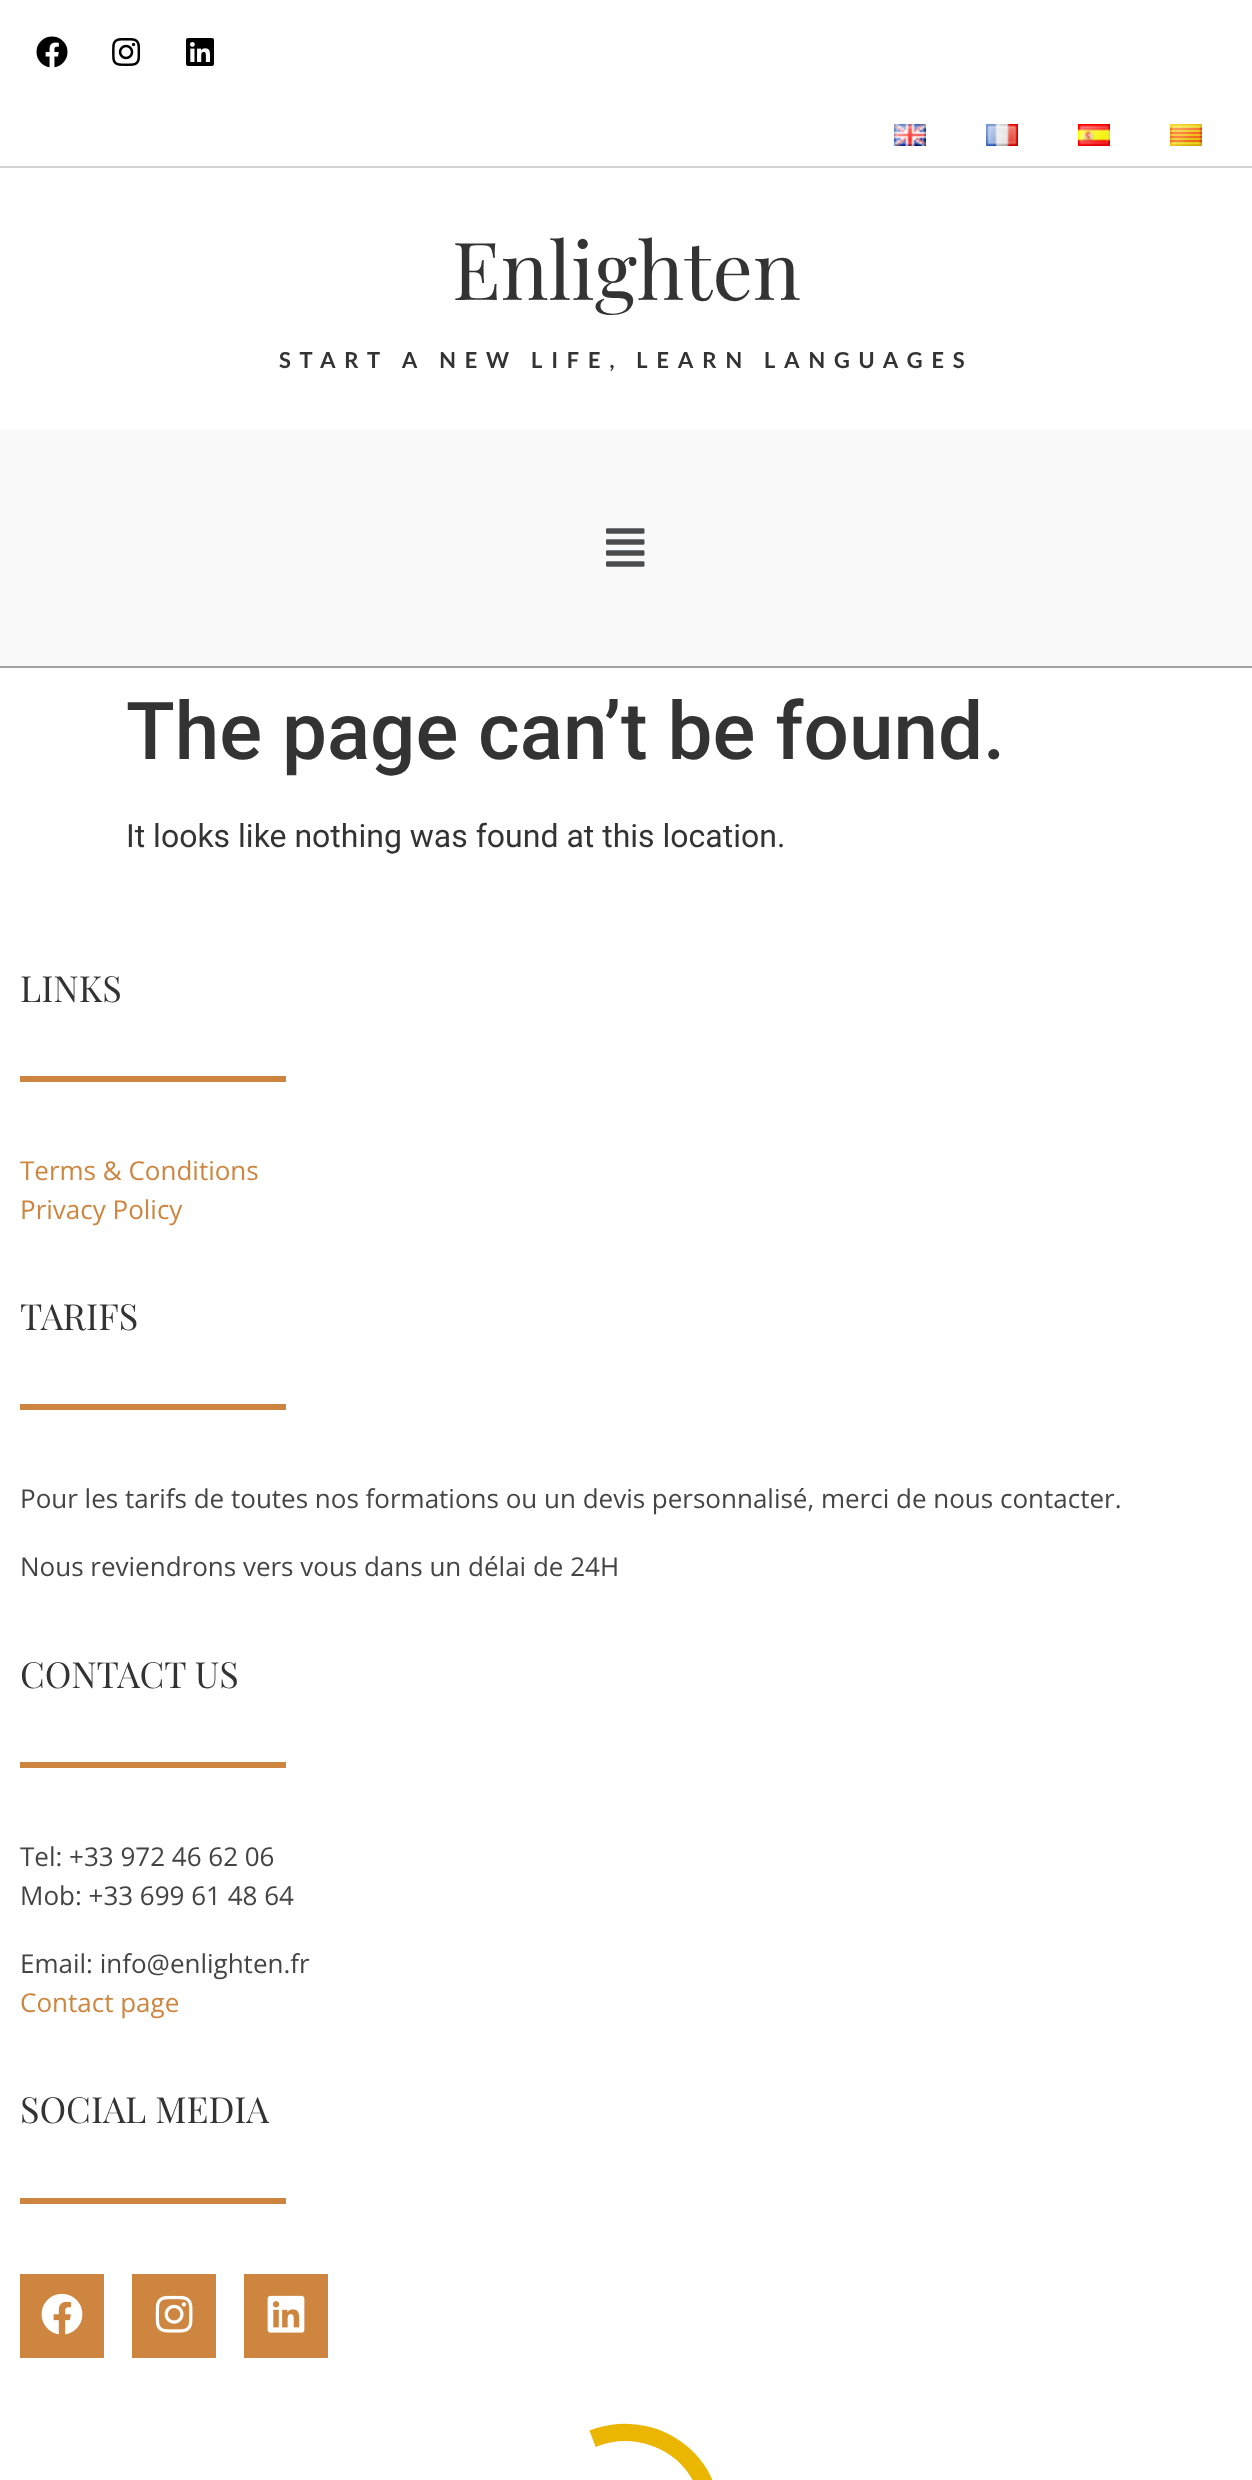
<!DOCTYPE html>
<meta charset="utf-8">
<style>body { margin: 0 } canvas { display: block }</style>
<canvas id="canvas" width="1252" height="2480"></canvas>
<script type="module">
  const canvas = document.getElementById("canvas");
  const g = canvas.getContext("2d");
  g.miterLimit = 4;
  g.fontKerning = "normal";
  function drawText(s, x, y, [font, color]) {
    g.font = font;
    g.fillStyle = color;
    g.fillText(s, x, y);
  }
  function fillBox(x, y, w, h, color) {
    g.fillStyle = color;
    g.fillRect(x, y, w, h);
  }
  async function drawPicture(src, x, y, w, h) {
    const img = new Image();
    img.src = src;
    await img.decode();
    g.drawImage(img, x, y, w, h);
  }

  const s1 = ["80px Playfair Display", "#333333"];
  const s2 = ["bold 22px Lato", "#333333"];
  const s3 = ["500 80px Roboto", "#333333"];
  const s4 = ["32px Roboto", "#333333"];
  const s5 = ["36px Playfair Display", "#333333"];
  const s6 = ["26px Open Sans", "#CD853F"];
  const s7 = ["26px Open Sans", "#444444"];

  fillBox(0, 0, 1252, 2480, "#FFFFFF");
  fillBox(0, 166, 1252, 2, "#D4D4D4");
  await drawPicture("pic1.png", 36, 36, 32, 32);
  await drawPicture("pic2.png", 112, 38, 29, 28);
  await drawPicture("pic3.png", 186, 38, 28, 28);
  await drawPicture("pic4.png", 894, 124, 32, 22);
  await drawPicture("pic5.png", 986, 124, 32, 22);
  await drawPicture("pic6.png", 1078, 124, 32, 22);
  await drawPicture("pic7.png", 1170, 124, 32, 22);
  drawText("Enlighten", 452, 300, s1);
  g.letterSpacing = "8.8px";
  drawText("START A NEW LIFE, LEARN LANGUAGES", 279, 368, s2);
  fillBox(0, 666, 1252, 2, "#A2A2A2");
  fillBox(0, 430, 1252, 236, "#F9F9F9");
  await drawPicture("pic8.png", 606, 528, 39, 39);
  g.letterSpacing = "0px";
  drawText("The page can’t be found.", 126, 759, s3);
  drawText("It looks like nothing was found at this location.", 126, 847, s4);
  drawText("LINKS", 20, 1002, s5);
  fillBox(20, 1076, 266, 6, "#CD853F");
  drawText("Terms & Conditions", 20, 1180, s6);
  drawText("Privacy Policy", 20, 1219, s6);
  drawText("TARIFS", 20, 1330, s5);
  fillBox(20, 1404, 266, 6, "#CD853F");
  drawText("Pour les tarifs de toutes nos formations ou un devis personnalisé, merci de nous contacter.", 20, 1508, s7);
  drawText("Nous reviendrons vers vous dans un délai de 24H", 20, 1576, s7);
  drawText("CONTACT US", 20, 1688, s5);
  fillBox(20, 1762, 266, 6, "#CD853F");
  drawText("Tel: +33 972 46 62 06", 20, 1866, s7);
  drawText("Mob: +33 699 61 48 64", 20, 1905, s7);
  drawText("Email: info@enlighten.fr", 20, 1973, s7);
  drawText("Contact page", 20, 2012, s6);
  drawText("SOCIAL MEDIA", 20, 2123, s5);
  fillBox(20, 2198, 266, 6, "#CD853F");
  fillBox(20, 2274, 84, 84, "#CD853F");
  await drawPicture("pic9.png", 41, 2293, 42, 42);
  fillBox(132, 2274, 84, 84, "#CD853F");
  await drawPicture("pic10.png", 155, 2295, 38, 38);
  fillBox(244, 2274, 84, 84, "#CD853F");
  await drawPicture("pic11.png", 267, 2295, 38, 38);
  await drawPicture("pic12.png", 589, 2423, 124, 57);
</script>
